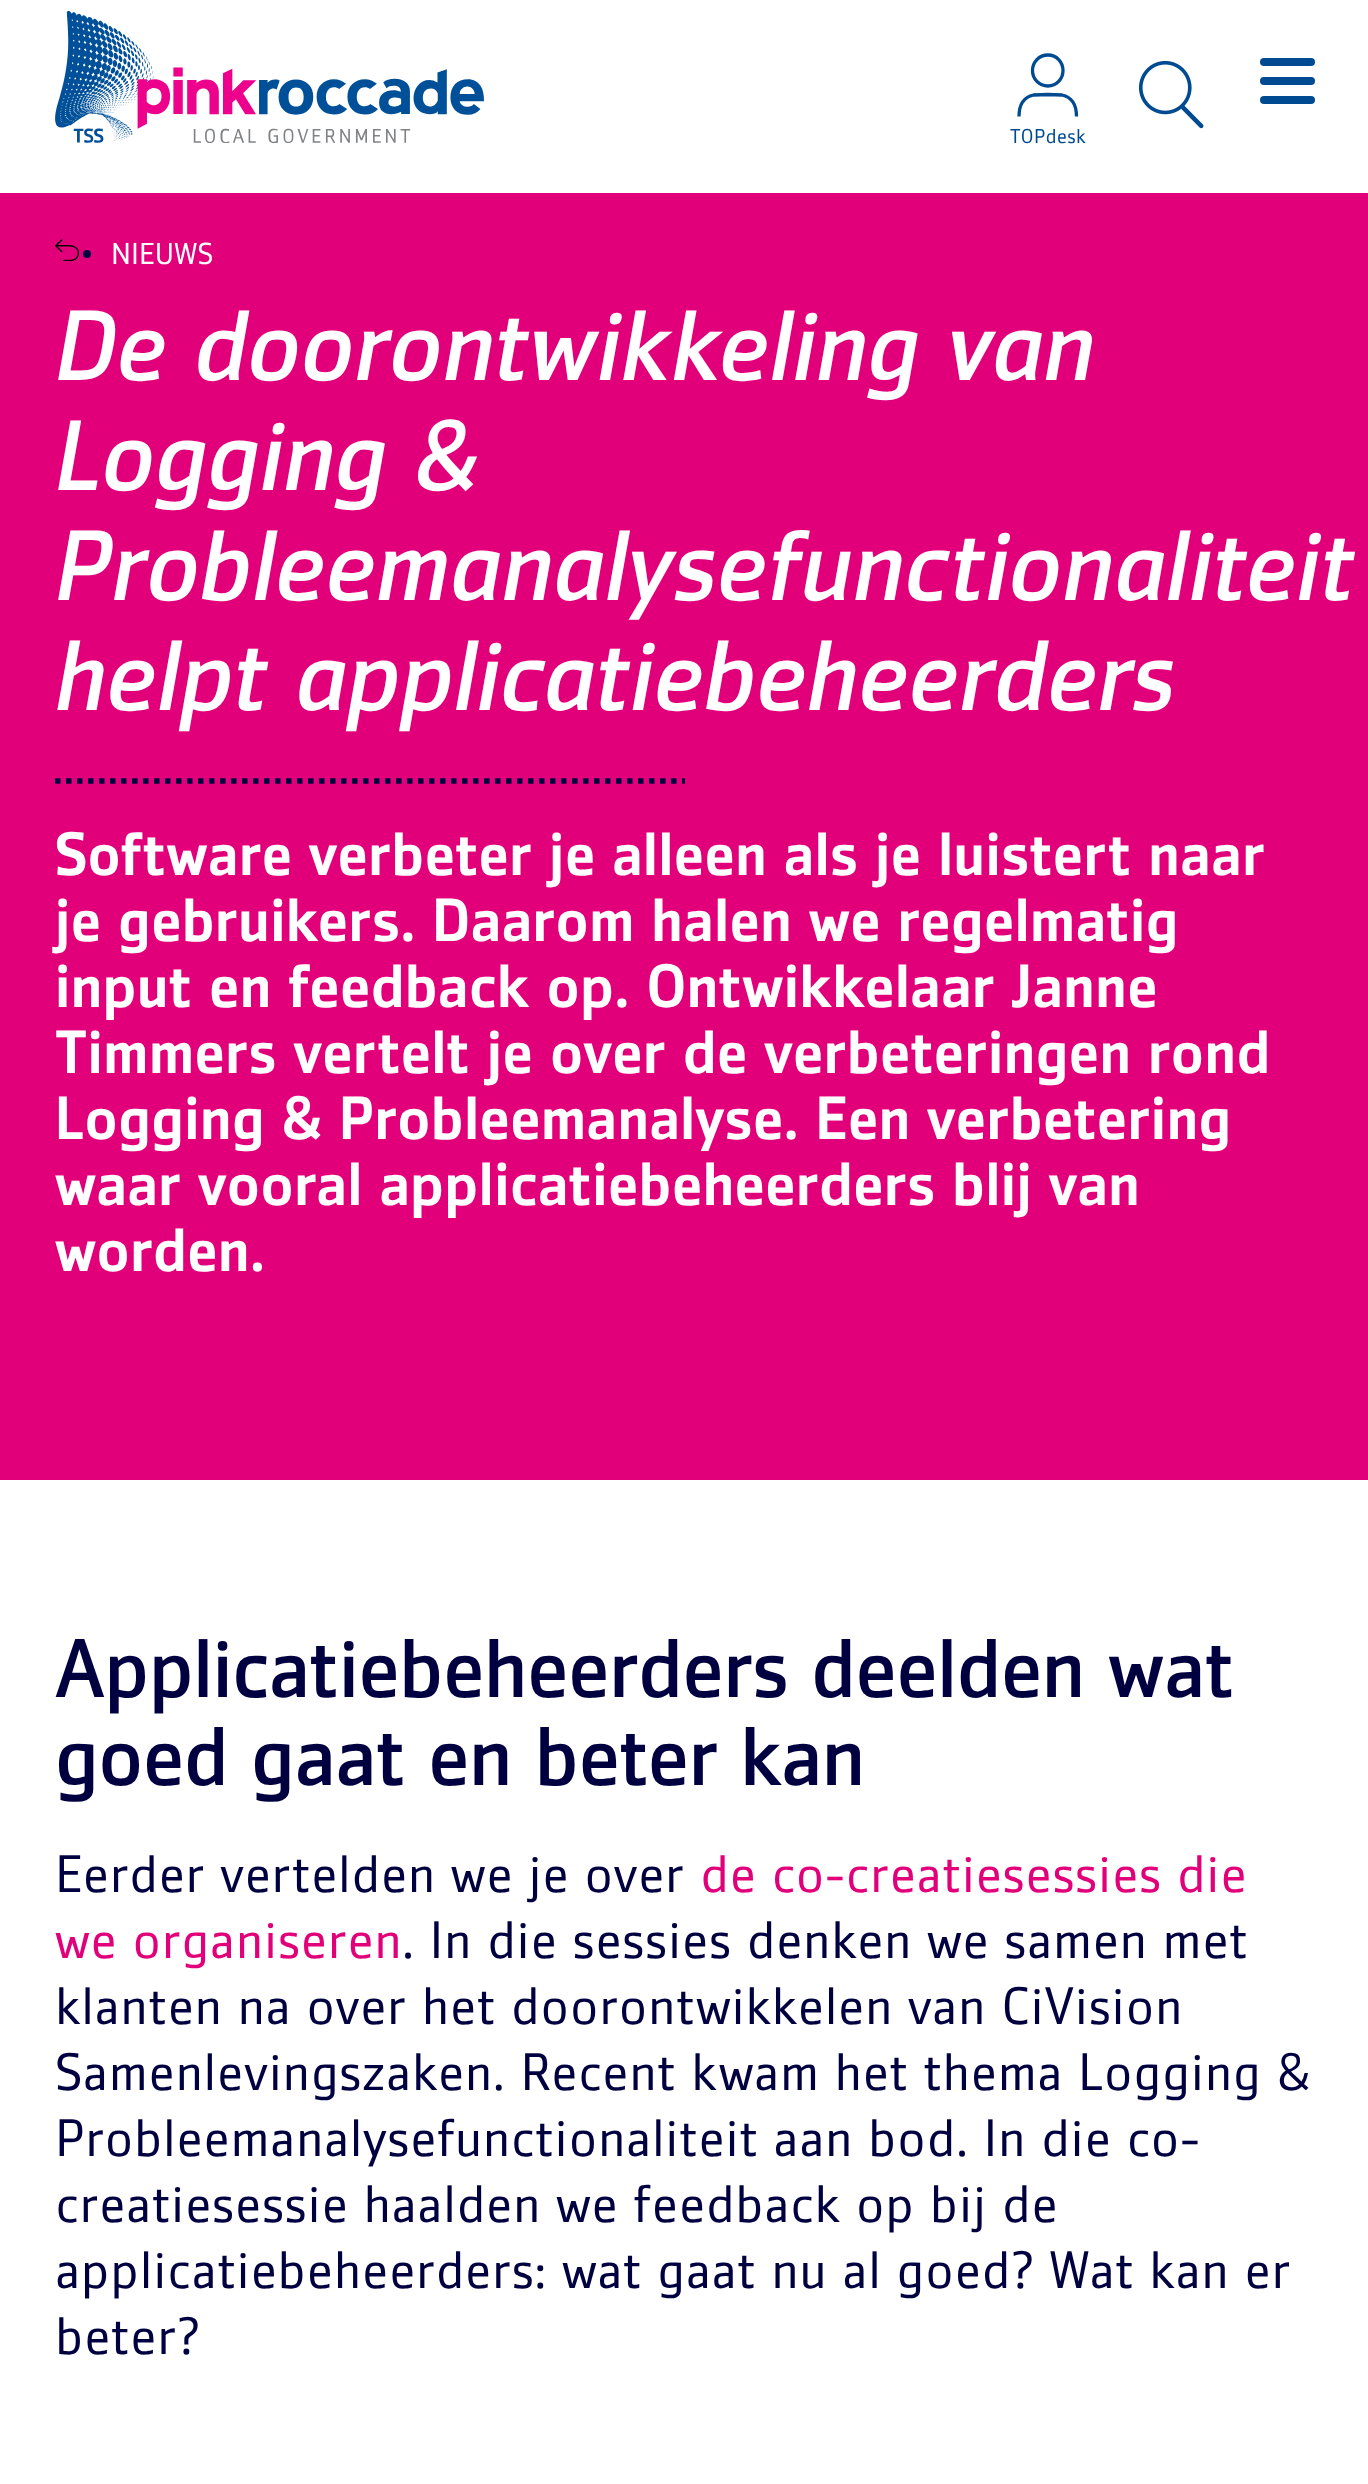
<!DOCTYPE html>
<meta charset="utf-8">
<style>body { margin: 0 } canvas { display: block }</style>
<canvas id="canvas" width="1368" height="2484"></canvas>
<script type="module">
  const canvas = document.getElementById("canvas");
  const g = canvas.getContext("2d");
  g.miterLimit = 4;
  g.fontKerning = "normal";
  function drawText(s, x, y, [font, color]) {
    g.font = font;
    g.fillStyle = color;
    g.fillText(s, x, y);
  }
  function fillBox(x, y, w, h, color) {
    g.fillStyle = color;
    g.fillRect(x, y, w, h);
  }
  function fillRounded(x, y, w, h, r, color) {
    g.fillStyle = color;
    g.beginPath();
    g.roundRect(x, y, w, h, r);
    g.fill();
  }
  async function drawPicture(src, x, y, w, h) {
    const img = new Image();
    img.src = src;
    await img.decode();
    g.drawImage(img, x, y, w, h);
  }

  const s1 = ["300 20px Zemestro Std", "#004A91"];
  const s2 = ["300 30px Zemestro Std", "#FFFFFF"];
  const s3 = ["italic 99px Zemestro Std", "#FFFFFF"];
  const s4 = ["500 60.5px Zemestro Std", "#FFFFFF"];
  const s5 = ["82.5px Zemestro Std", "#000041"];
  const s6 = ["300 52.25px Zemestro Std", "#000041"];
  const s7 = ["300 52.25px Zemestro Std", "#E2007A"];

  fillBox(0, 0, 1368, 2484, "#FFFFFF");
  await drawPicture("pic1.png", 55, 11, 429, 132);
  await drawPicture("pic2.png", 1139, 61, 65, 68);
  fillRounded(1260, 77, 55, 8, 4, "#004A91");
  fillRounded(1260, 58, 55, 8, 4, "#004A91");
  fillRounded(1260, 96, 55, 8, 4, "#004A91");
  g.beginPath();
  g.moveTo(1063, 70.5);
  g.bezierCurveTo(1063, 79, 1056.5, 86, 1048, 86);
  g.bezierCurveTo(1039, 86, 1032.5, 79, 1032.5, 70.5);
  g.bezierCurveTo(1032.5, 62, 1039, 55, 1048, 55);
  g.bezierCurveTo(1056.5, 55, 1063, 62, 1063, 70.5);
  g.strokeStyle = "#004A91";
  g.lineWidth = 3.3;
  g.stroke();
  g.beginPath();
  g.moveTo(1076.5, 116.5);
  g.bezierCurveTo(1076.5, 106.5, 1073.5, 97.5, 1062, 95);
  g.lineTo(1048, 94.5);
  g.lineTo(1033.5, 95);
  g.bezierCurveTo(1022, 97.5, 1019, 106.5, 1019, 116.5);
  g.stroke();
  g.letterSpacing = "0.25px";
  drawText("TOPdesk", 1010, 143, s1);
  fillBox(0, 193, 1368, 1287, "#E2007A");
  await drawPicture("pic3.png", 55, 239, 24, 22);
  g.fillStyle = "#000041";
  g.beginPath();
  g.arc(87, 254, 4, 0, Math.PI * 2);
  g.fill();
  g.letterSpacing = "0px";
  drawText("NIEUWS", 111, 264, s2);
  drawText("De doorontwikkeling van", 55, 380, s3);
  drawText("Logging &", 55, 490, s3);
  drawText("Probleemanalysefunctionaliteit", 55, 600, s3);
  drawText("helpt applicatiebeheerders", 55, 710, s3);
  g.beginPath();
  g.moveTo(55, 781);
  g.lineTo(685, 781);
  g.strokeStyle = "#000041";
  g.lineWidth = 5.5;
  g.setLineDash([5.5, 5.5]);
  g.stroke();
  g.letterSpacing = "0.55px";
  drawText("Software verbeter je alleen als je luistert naar", 55, 875, s4);
  drawText("je gebruikers. Daarom halen we regelmatig", 55, 941, s4);
  drawText("input en feedback op. Ontwikkelaar Janne", 55, 1007, s4);
  drawText("Timmers vertelt je over de verbeteringen rond", 55, 1073, s4);
  drawText("Logging & Probleemanalyse. Een verbetering", 55, 1139, s4);
  drawText("waar vooral applicatiebeheerders blij van", 55, 1205, s4);
  drawText("worden.", 55, 1271, s4);
  g.letterSpacing = "0px";
  drawText("Applicatiebeheerders deelden wat", 55, 1697, s5);
  drawText("goed gaat en beter kan", 55, 1785, s5);
  g.letterSpacing = "0.55px";
  drawText("Eerder vertelden we je over", 55, 1892, s6);
  drawText("de co-creatiesessies die", 700, 1892, s7);
  drawText("we organiseren", 55, 1958, s7);
  drawText(". In die sessies denken we samen met", 402, 1958, s6);
  drawText("klanten na over het doorontwikkelen van CiVision", 55, 2024, s6);
  drawText("Samenlevingszaken. Recent kwam het thema Logging &", 55, 2090, s6);
  drawText("Probleemanalysefunctionaliteit aan bod. In die co-", 55, 2156, s6);
  drawText("creatiesessie haalden we feedback op bij de", 55, 2222, s6);
  drawText("applicatiebeheerders: wat gaat nu al goed? Wat kan er", 55, 2288, s6);
  drawText("beter?", 55, 2354, s6);
</script>
